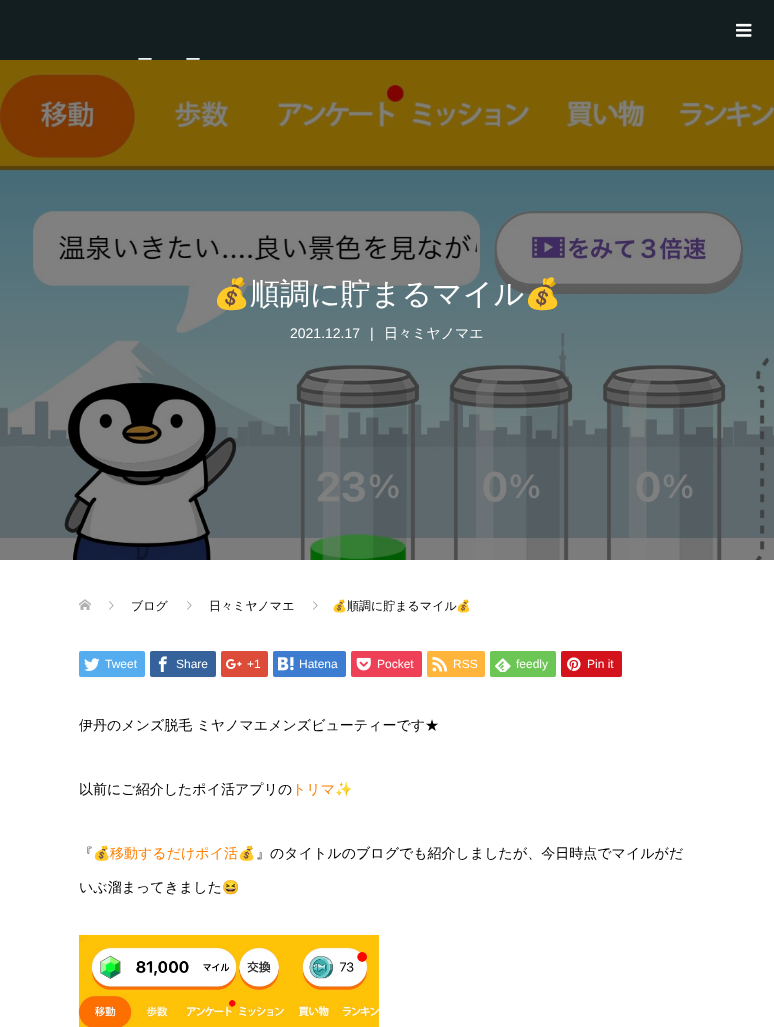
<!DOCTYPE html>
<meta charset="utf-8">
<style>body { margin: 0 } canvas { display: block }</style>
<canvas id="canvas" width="774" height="1027"></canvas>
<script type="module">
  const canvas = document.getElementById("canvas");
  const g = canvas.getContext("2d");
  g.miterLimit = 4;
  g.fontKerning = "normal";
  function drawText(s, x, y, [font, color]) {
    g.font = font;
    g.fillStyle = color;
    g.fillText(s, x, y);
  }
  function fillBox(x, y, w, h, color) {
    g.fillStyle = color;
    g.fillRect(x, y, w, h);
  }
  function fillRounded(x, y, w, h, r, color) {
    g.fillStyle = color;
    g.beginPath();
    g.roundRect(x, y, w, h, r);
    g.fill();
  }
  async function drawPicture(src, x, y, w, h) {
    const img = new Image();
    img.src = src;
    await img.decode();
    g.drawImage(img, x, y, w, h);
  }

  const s1 = ["500 16px WenQuanYi Zen Hei", "#FFFFFF"];
  const s2 = ["30px Noto Color Emoji", "#FFFFFF"];
  const s3 = ["500 30px WenQuanYi Zen Hei", "#FFFFFF"];
  const s4 = ["14px Liberation Sans", "#FFFFFF"];
  const s5 = ["500 14px WenQuanYi Zen Hei", "#FFFFFF"];
  const s6 = ["500 12px WenQuanYi Zen Hei", "#000000"];
  const s7 = ["12px Noto Color Emoji", "#000000"];
  const s8 = ["12px Liberation Sans", "#FFFFFF"];
  const s9 = ["500 14px WenQuanYi Zen Hei", "#000000"];
  const s10 = ["500 14px WenQuanYi Zen Hei", "#FF7F00"];
  const s11 = ["14px Noto Color Emoji", "#000000"];
  const s12 = ["14px Noto Color Emoji", "#FF7F00"];

  fillBox(0, 0, 774, 1027, "#FFFFFF");
  fillBox(0, 0, 774, 60, "#121E1F");
  await drawPicture("pic1.png", 736, 23, 16, 14);
  drawText("ー", 137, 65, s1);
  drawText("ー", 185, 65, s1);
  await drawPicture("pic2.png", 0, 60, 774, 500);
  drawText("💰", 213, 304, s2);
  drawText("順調に貯まるマイル", 250, 304, s3);
  drawText("💰", 524, 304, s2);
  drawText("2021.12.17", 290, 338, s4);
  drawText("|", 370, 338, s4);
  drawText("日々ミヤノマエ", 384, 338, s5);
  await drawPicture("pic3.png", 79, 599, 12, 11);
  await drawPicture("pic4.png", 109, 601, 5, 9);
  drawText("ブログ", 131, 610, s6);
  await drawPicture("pic4.png", 187, 601, 5, 9);
  drawText("日々ミヤノマエ", 209, 610, s6);
  await drawPicture("pic4.png", 313, 601, 5, 9);
  drawText("💰", 332, 610, s7);
  drawText("順調に貯まるマイル", 347, 610, s6);
  drawText("💰", 456, 610, s7);
  g.fillStyle = "#F7F7F7";
  g.beginPath();
  g.moveTo(79, 675);
  g.bezierCurveTo(79, 681, 88, 678, 91, 678);
  g.lineTo(133, 678);
  g.bezierCurveTo(136, 678, 145, 681, 145, 675);
  g.lineTo(144, 677);
  g.lineTo(91, 677);
  g.bezierCurveTo(87, 677, 79, 679, 79, 675);
  g.closePath();
  g.fill();
  fillRounded(79, 651, 66, 26, 2, "#55ACEE");
  await drawPicture("pic5.png", 84, 658, 16, 13);
  drawText("Tweet", 105, 668, s8);
  g.fillStyle = "#F7F7F7";
  g.beginPath();
  g.moveTo(150, 675);
  g.bezierCurveTo(150, 681, 159, 678, 162, 678);
  g.lineTo(204, 678);
  g.bezierCurveTo(207, 678, 216, 681, 216, 675);
  g.lineTo(215, 677);
  g.lineTo(162, 677);
  g.bezierCurveTo(158, 677, 150, 679, 150, 675);
  g.closePath();
  g.fill();
  fillRounded(150, 651, 66, 26, 2, "#35629A");
  await drawPicture("pic6.png", 158, 656, 9, 16);
  drawText("Share", 176, 668, s8);
  g.fillStyle = "#F7F7F7";
  g.beginPath();
  g.moveTo(221, 675);
  g.bezierCurveTo(221, 680, 226, 678, 230, 678);
  g.lineTo(259, 678);
  g.bezierCurveTo(263, 678, 268, 680, 268, 675);
  g.bezierCurveTo(268, 676, 267, 677, 266, 677);
  g.lineTo(223, 677);
  g.bezierCurveTo(222, 677, 221, 676, 221, 675);
  g.closePath();
  g.fill();
  fillRounded(221, 651, 47, 26, 2, "#DD4B39");
  await drawPicture("pic7.png", 226, 659, 16, 10);
  drawText("+1", 247, 668, s8);
  g.fillStyle = "#F7F7F7";
  g.beginPath();
  g.moveTo(273, 675);
  g.bezierCurveTo(273, 681, 283, 678, 286, 678);
  g.lineTo(332, 678);
  g.bezierCurveTo(336, 678, 346, 681, 346, 675);
  g.bezierCurveTo(346, 676, 345, 677, 344, 677);
  g.lineTo(275, 677);
  g.bezierCurveTo(274, 677, 273, 676, 273, 675);
  g.closePath();
  g.fill();
  fillRounded(273, 651, 73, 26, 2, "#3C7DD1");
  await drawPicture("pic8.png", 278, 657, 16, 14);
  drawText("Hatena", 299, 668, s8);
  g.fillStyle = "#F7F7F7";
  g.beginPath();
  g.moveTo(351, 675);
  g.bezierCurveTo(351, 681, 361, 678, 364, 678);
  g.lineTo(409, 678);
  g.bezierCurveTo(412, 678, 422, 681, 422, 675);
  g.bezierCurveTo(422, 676, 421, 677, 420, 677);
  g.lineTo(352, 677);
  g.closePath();
  g.fill();
  fillRounded(351, 651, 71, 26, 2, "#EE4056");
  await drawPicture("pic9.png", 356, 657, 15, 14);
  drawText("Pocket", 377, 668, s8);
  g.fillStyle = "#F7F7F7";
  g.beginPath();
  g.moveTo(427, 675);
  g.bezierCurveTo(427, 680, 434, 678, 438, 678);
  g.lineTo(474, 678);
  g.bezierCurveTo(478, 678, 485, 680, 485, 675);
  g.lineTo(484, 677);
  g.lineTo(428, 677);
  g.closePath();
  g.fill();
  fillRounded(427, 651, 58, 26, 2, "#FFB53C");
  await drawPicture("pic10.png", 432, 656, 16, 16);
  drawText("RSS", 453, 668, s8);
  g.fillStyle = "#F7F7F7";
  g.beginPath();
  g.moveTo(490, 675);
  g.bezierCurveTo(490, 681, 499, 678, 502, 678);
  g.lineTo(544, 678);
  g.bezierCurveTo(547, 678, 556, 681, 556, 675);
  g.bezierCurveTo(556, 679, 548, 677, 544, 677);
  g.lineTo(491, 677);
  g.closePath();
  g.fill();
  fillRounded(490, 651, 66, 26, 2, "#6CC655");
  await drawPicture("pic11.png", 495, 658, 16, 14);
  drawText("feedly", 516, 668, s8);
  g.fillStyle = "#F7F7F7";
  g.beginPath();
  g.moveTo(561, 675);
  g.bezierCurveTo(561, 681, 569, 678, 572, 678);
  g.lineTo(610, 678);
  g.bezierCurveTo(614, 678, 622, 681, 622, 675);
  g.lineTo(621, 677);
  g.lineTo(572, 677);
  g.bezierCurveTo(569, 677, 564, 679, 562, 676);
  g.closePath();
  g.fill();
  fillRounded(561, 651, 61, 26, 2, "#D4121C");
  await drawPicture("pic12.png", 567, 657, 14, 14);
  drawText("Pin it", 587, 668, s8);
  drawText("伊丹のメンズ脱毛 ミヤノマエメンズビューティーです★", 79, 730, s9);
  drawText("以前にご紹介したポイ活アプリの", 79, 794, s9);
  drawText("トリマ", 292, 794, s10);
  drawText("✨", 335, 794, s11);
  drawText("『", 79, 858, s9);
  drawText("💰", 93, 858, s12);
  drawText("移動するだけポイ活", 110, 858, s10);
  drawText("💰", 238, 858, s12);
  drawText("』のタイトルのブログでも紹介しましたが、今日時点でマイルがだ", 256, 858, s9);
  drawText("いぶ溜まってきました", 79, 892, s9);
  drawText("😆", 222, 892, s11);
  await drawPicture("pic13.png", 78, 934, 301, 93);
</script>
